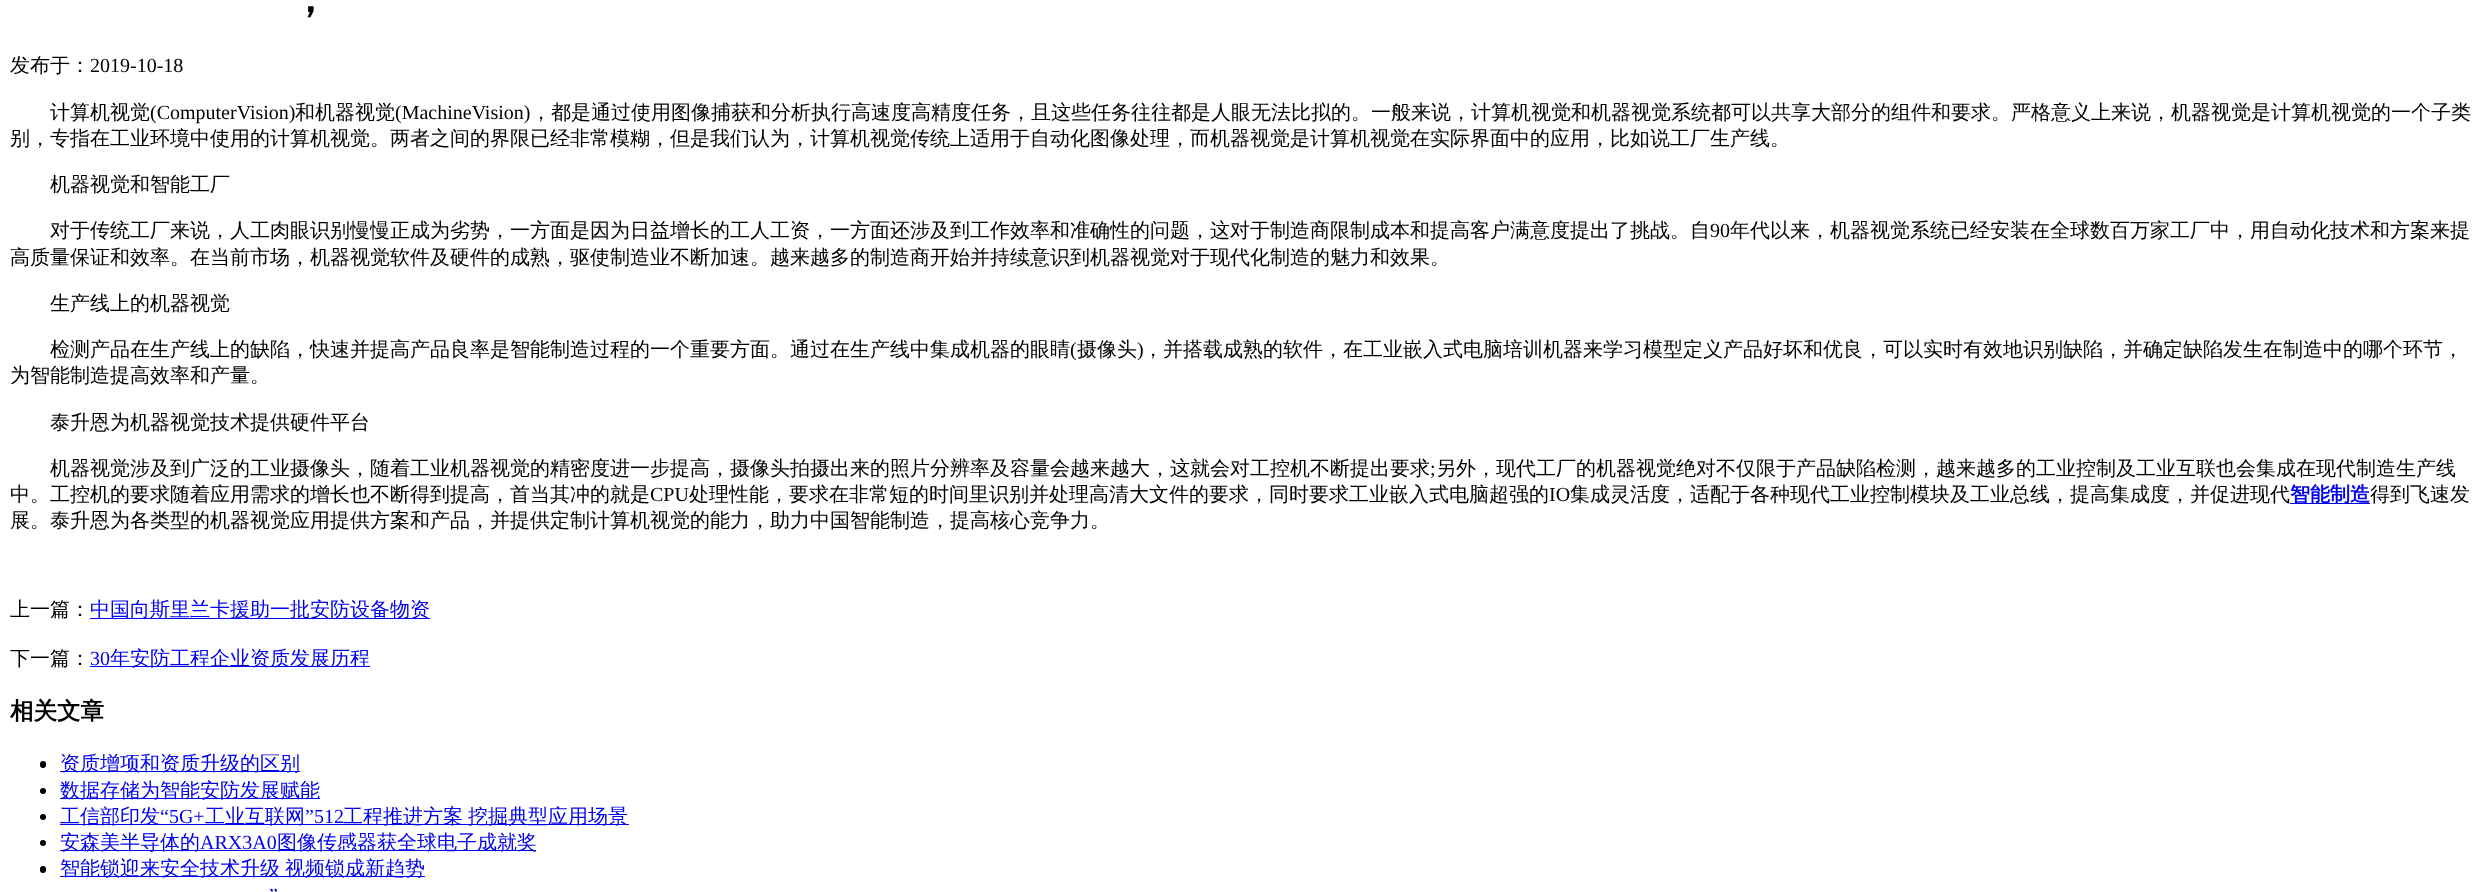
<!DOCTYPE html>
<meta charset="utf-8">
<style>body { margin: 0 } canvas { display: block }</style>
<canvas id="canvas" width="2486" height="892"></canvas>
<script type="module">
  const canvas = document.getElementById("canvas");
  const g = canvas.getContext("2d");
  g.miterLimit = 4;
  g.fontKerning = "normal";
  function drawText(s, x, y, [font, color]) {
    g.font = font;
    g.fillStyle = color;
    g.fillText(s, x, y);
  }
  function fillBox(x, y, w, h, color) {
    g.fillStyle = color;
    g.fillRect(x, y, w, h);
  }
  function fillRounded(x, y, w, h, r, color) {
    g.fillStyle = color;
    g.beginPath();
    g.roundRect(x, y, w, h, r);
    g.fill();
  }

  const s1 = ["bold 40px WenQuanYi Zen Hei", "#000000"];
  const s2 = ["500 20px WenQuanYi Zen Hei", "#000000"];
  const s3 = ["20px Liberation Serif", "#000000"];
  const s4 = ["bold 20px WenQuanYi Zen Hei", "#0000EE"];
  const s5 = ["500 20px WenQuanYi Zen Hei", "#0000EE"];
  const s6 = ["20px Liberation Serif", "#0000EE"];
  const s7 = ["bold 23.5px WenQuanYi Zen Hei", "#000000"];

  fillBox(0, 0, 2486, 892, "#FFFFFF");
  drawText("，", 290, 12, s1);
  drawText("发布于：", 10, 72, s2);
  drawText("2019-10-18", 90, 72, s3);
  drawText("计算机视觉", 50, 119, s2);
  drawText("(ComputerVision)", 150, 119, s3);
  drawText("和机器视觉", 295, 119, s2);
  drawText("(MachineVision)", 395, 119, s3);
  drawText("，都是通过使用图像捕获和分析执行高速度高精度任务，且这些任务往往都是人眼无法比拟的。一般来说，计算机视觉和机器视觉系统都可以共享大部分的组件和要求。严格意义上来说，机器视觉是计算机视觉的一个子类", 531, 119, s2);
  drawText("别，专指在工业环境中使用的计算机视觉。两者之间的界限已经非常模糊，但是我们认为，计算机视觉传统上适用于自动化图像处理，而机器视觉是计算机视觉在实际界面中的应用，比如说工厂生产线。", 10, 145, s2);
  drawText("机器视觉和智能工厂", 50, 191, s2);
  drawText("对于传统工厂来说，人工肉眼识别慢慢正成为劣势，一方面是因为日益增长的工人工资，一方面还涉及到工作效率和准确性的问题，这对于制造商限制成本和提高客户满意度提出了挑战。自", 50, 237, s2);
  drawText("90", 1710, 237, s3);
  drawText("年代以来，机器视觉系统已经安装在全球数百万家工厂中，用自动化技术和方案来提", 1730, 237, s2);
  drawText("高质量保证和效率。在当前市场，机器视觉软件及硬件的成熟，驱使制造业不断加速。越来越多的制造商开始并持续意识到机器视觉对于现代化制造的魅力和效果。", 10, 264, s2);
  drawText("生产线上的机器视觉", 50, 310, s2);
  drawText("检测产品在生产线上的缺陷，快速并提高产品良率是智能制造过程的一个重要方面。通过在生产线中集成机器的眼睛", 50, 356, s2);
  drawText("(", 1070, 356, s3);
  drawText("摄像头", 1077, 356, s2);
  drawText(")", 1137, 356, s3);
  drawText("，并搭载成熟的软件，在工业嵌入式电脑培训机器来学习模型定义产品好坏和优良，可以实时有效地识别缺陷，并确定缺陷发生在制造中的哪个环节，", 1143, 356, s2);
  drawText("为智能制造提高效率和产量。", 10, 382, s2);
  drawText("泰升恩为机器视觉技术提供硬件平台", 50, 429, s2);
  drawText("机器视觉涉及到广泛的工业摄像头，随着工业机器视觉的精密度进一步提高，摄像头拍摄出来的照片分辨率及容量会越来越大，这就会对工控机不断提出要求", 50, 475, s2);
  drawText(";", 1430, 475, s3);
  drawText("另外，现代工厂的机器视觉绝对不仅限于产品缺陷检测，越来越多的工业控制及工业互联也会集成在现代制造生产线", 1436, 475, s2);
  drawText("中。工控机的要求随着应用需求的增长也不断得到提高，首当其冲的就是", 10, 501, s2);
  drawText("CPU", 650, 501, s3);
  drawText("处理性能，要求在非常短的时间里识别并处理高清大文件的要求，同时要求工业嵌入式电脑超强的", 689, 501, s2);
  drawText("IO", 1549, 501, s3);
  drawText("集成灵活度，适配于各种现代工业控制模块及工业总线，提高集成度，并促进现代", 1570, 501, s2);
  fillBox(2290, 503, 80, 1, "#0000EE");
  drawText("智能制造", 2290, 501, s4);
  drawText("得到飞速发", 2370, 501, s2);
  drawText("展。泰升恩为各类型的机器视觉应用提供方案和产品，并提供定制计算机视觉的能力，助力中国智能制造，提高核心竞争力。", 10, 527, s2);
  drawText("上一篇：", 10, 616, s2);
  fillBox(90, 618, 340, 1, "#0000EE");
  drawText("中国向斯里兰卡援助一批安防设备物资", 90, 616, s5);
  drawText("下一篇：", 10, 665, s2);
  drawText("30", 90, 665, s6);
  fillBox(90, 666, 280, 1, "#0000EE");
  drawText("年安防工程企业资质发展历程", 110, 665, s5);
  drawText("相关文章", 10, 719, s7);
  fillRounded(40, 761, 6, 7, 3, "#000000");
  fillBox(60, 771, 240, 1, "#0000EE");
  drawText("资质增项和资质升级的区别", 60, 770, s5);
  g.fillStyle = "#000000";
  g.beginPath();
  g.arc(43, 791, 3, 0, Math.PI * 2);
  g.fill();
  fillBox(60, 798, 260, 1, "#0000EE");
  drawText("数据存储为智能安防发展赋能", 60, 797, s5);
  g.fillStyle = "#000000";
  g.beginPath();
  g.arc(43, 817, 3, 0, Math.PI * 2);
  g.fill();
  fillBox(60, 824, 569, 1, "#0000EE");
  drawText("工信部印发", 60, 823, s5);
  drawText("“5G+", 160, 823, s6);
  drawText("工业互联网", 205, 823, s5);
  drawText("”512", 305, 823, s6);
  g.wordSpacing = "-1px";
  drawText("工程推进方案 挖掘典型应用场景", 343, 823, s5);
  g.fillStyle = "#000000";
  g.beginPath();
  g.arc(43, 843, 3, 0, Math.PI * 2);
  g.fill();
  fillBox(60, 850, 476, 1, "#0000EE");
  g.wordSpacing = "0px";
  drawText("安森美半导体的", 60, 849, s5);
  drawText("ARX3A0", 200, 849, s6);
  drawText("图像传感器获全球电子成就奖", 277, 849, s5);
  fillRounded(40, 866, 6, 7, 3, "#000000");
  fillBox(60, 876, 365, 1, "#0000EE");
  g.wordSpacing = "-1px";
  drawText("智能锁迎来安全技术升级 视频锁成新趋势", 60, 875, s5);
  g.wordSpacing = "0px";
  drawText("”", 269, 902, s6);
</script>
